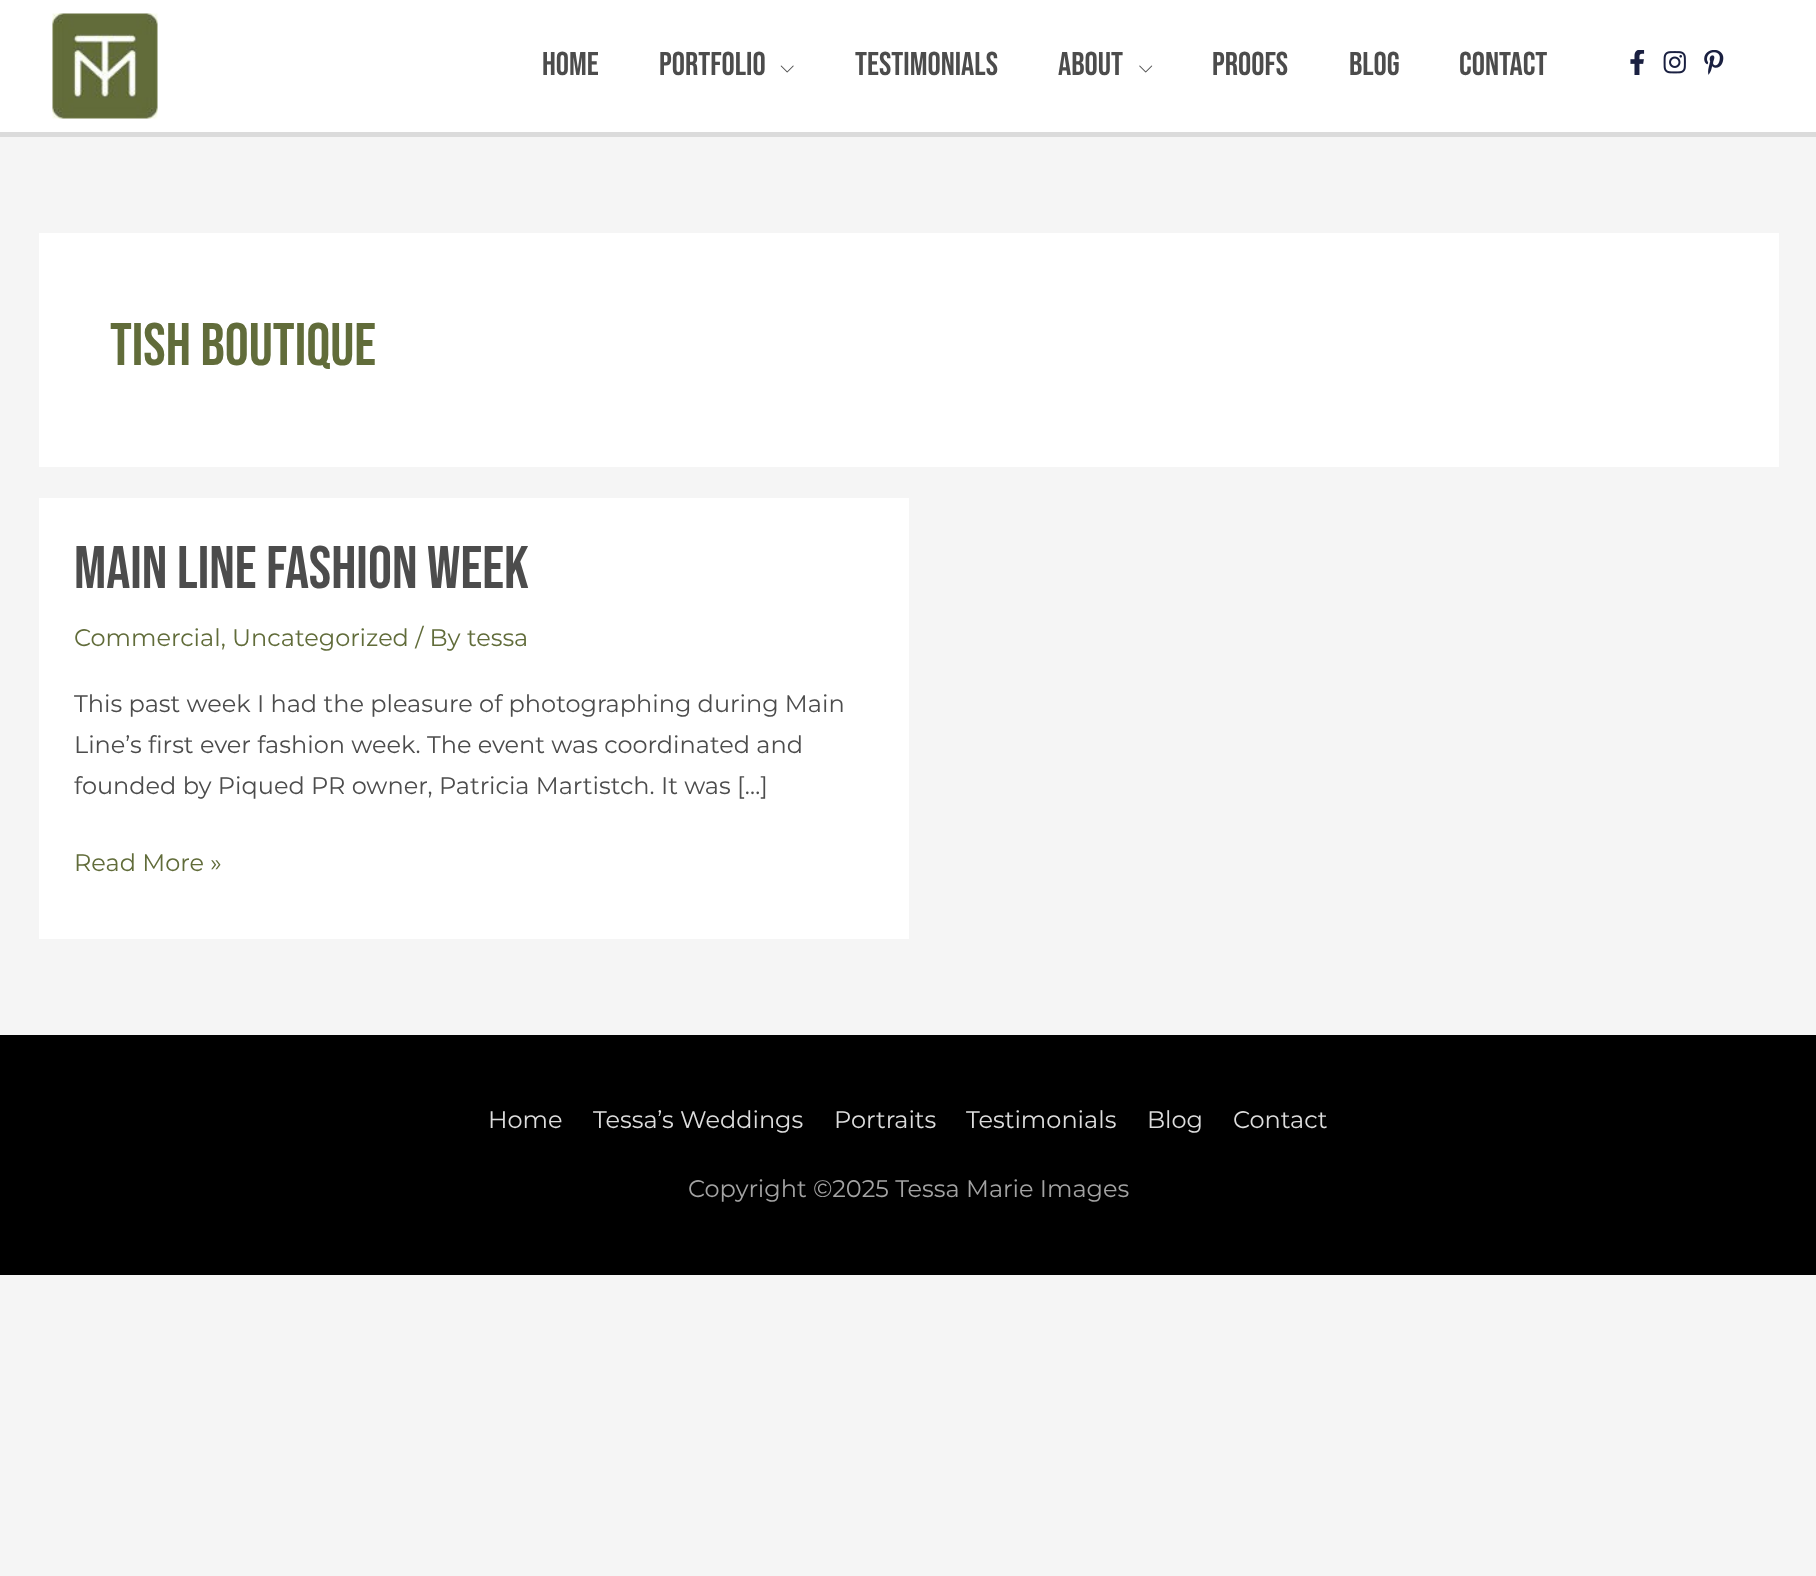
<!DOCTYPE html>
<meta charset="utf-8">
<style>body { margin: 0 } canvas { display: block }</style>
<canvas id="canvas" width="1816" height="1576"></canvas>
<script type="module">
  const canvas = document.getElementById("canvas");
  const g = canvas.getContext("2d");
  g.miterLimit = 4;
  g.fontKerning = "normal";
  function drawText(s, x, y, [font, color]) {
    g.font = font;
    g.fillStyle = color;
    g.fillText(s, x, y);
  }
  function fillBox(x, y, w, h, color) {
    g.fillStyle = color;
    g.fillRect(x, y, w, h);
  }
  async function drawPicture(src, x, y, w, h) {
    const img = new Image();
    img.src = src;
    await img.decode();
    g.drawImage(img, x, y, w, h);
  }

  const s1 = ["33px Bebas Neue", "#4C4C4C"];
  const s2 = ["60px Bebas Neue", "#616C3A"];
  const s3 = ["60px Bebas Neue", "#4C4C4C"];
  const s4 = ["100 24px Montserrat", "#616C3A"];
  const s5 = ["100 24px Montserrat", "#4C4C4C"];
  const s6 = ["100 24px Montserrat", "#DDDDDD"];
  const s7 = ["100 24px Montserrat", "#A3A3A3"];

  fillBox(0, 0, 1816, 1576, "#F5F5F5");
  fillBox(0, 0, 1816, 132, "#FFFFFF");
  fillBox(0, 132, 1816, 5, "#DBDBDB");
  await drawPicture("pic1.png", 52, 13, 106, 106);
  drawText("Home", 542, 75, s1);
  drawText("Portfolio", 659, 75, s1);
  await drawPicture("pic2.png", 780, 65, 14, 8);
  drawText("Testimonials", 855, 75, s1);
  drawText("About", 1058, 75, s1);
  await drawPicture("pic3.png", 1139, 65, 14, 8);
  drawText("Proofs", 1212, 75, s1);
  drawText("Blog", 1349, 75, s1);
  drawText("Contact", 1459, 75, s1);
  await drawPicture("pic4.png", 1630, 50, 15, 25);
  await drawPicture("pic5.png", 1663, 51, 23, 23);
  await drawPicture("pic6.png", 1704, 50, 20, 25);
  fillBox(39, 233, 1740, 234, "#FFFFFF");
  drawText("Tish Boutique", 110, 365, s2);
  fillBox(39, 498, 870, 441, "#FFFFFF");
  drawText("Main Line Fashion Week", 74, 588, s3);
  drawText("Commercial, Uncategorized / By tessa", 74, 646, s4);
  drawText("This past week I had the pleasure of photographing during Main", 74, 712, s5);
  drawText("Line’s first ever fashion week. The event was coordinated and", 74, 753, s5);
  drawText("founded by Piqued PR owner, Patricia Martistch. It was […]", 74, 794, s5);
  drawText("Read More »", 74, 871, s4);
  fillBox(0, 1035, 1816, 240, "#000000");
  drawText("Home", 488, 1128, s6);
  drawText("Tessa’s Weddings", 593, 1128, s6);
  drawText("Portraits", 834, 1128, s6);
  drawText("Testimonials", 966, 1128, s6);
  drawText("Blog", 1147, 1128, s6);
  drawText("Contact", 1233, 1128, s6);
  drawText("Copyright ©2025 Tessa Marie Images", 688, 1197, s7);
</script>
